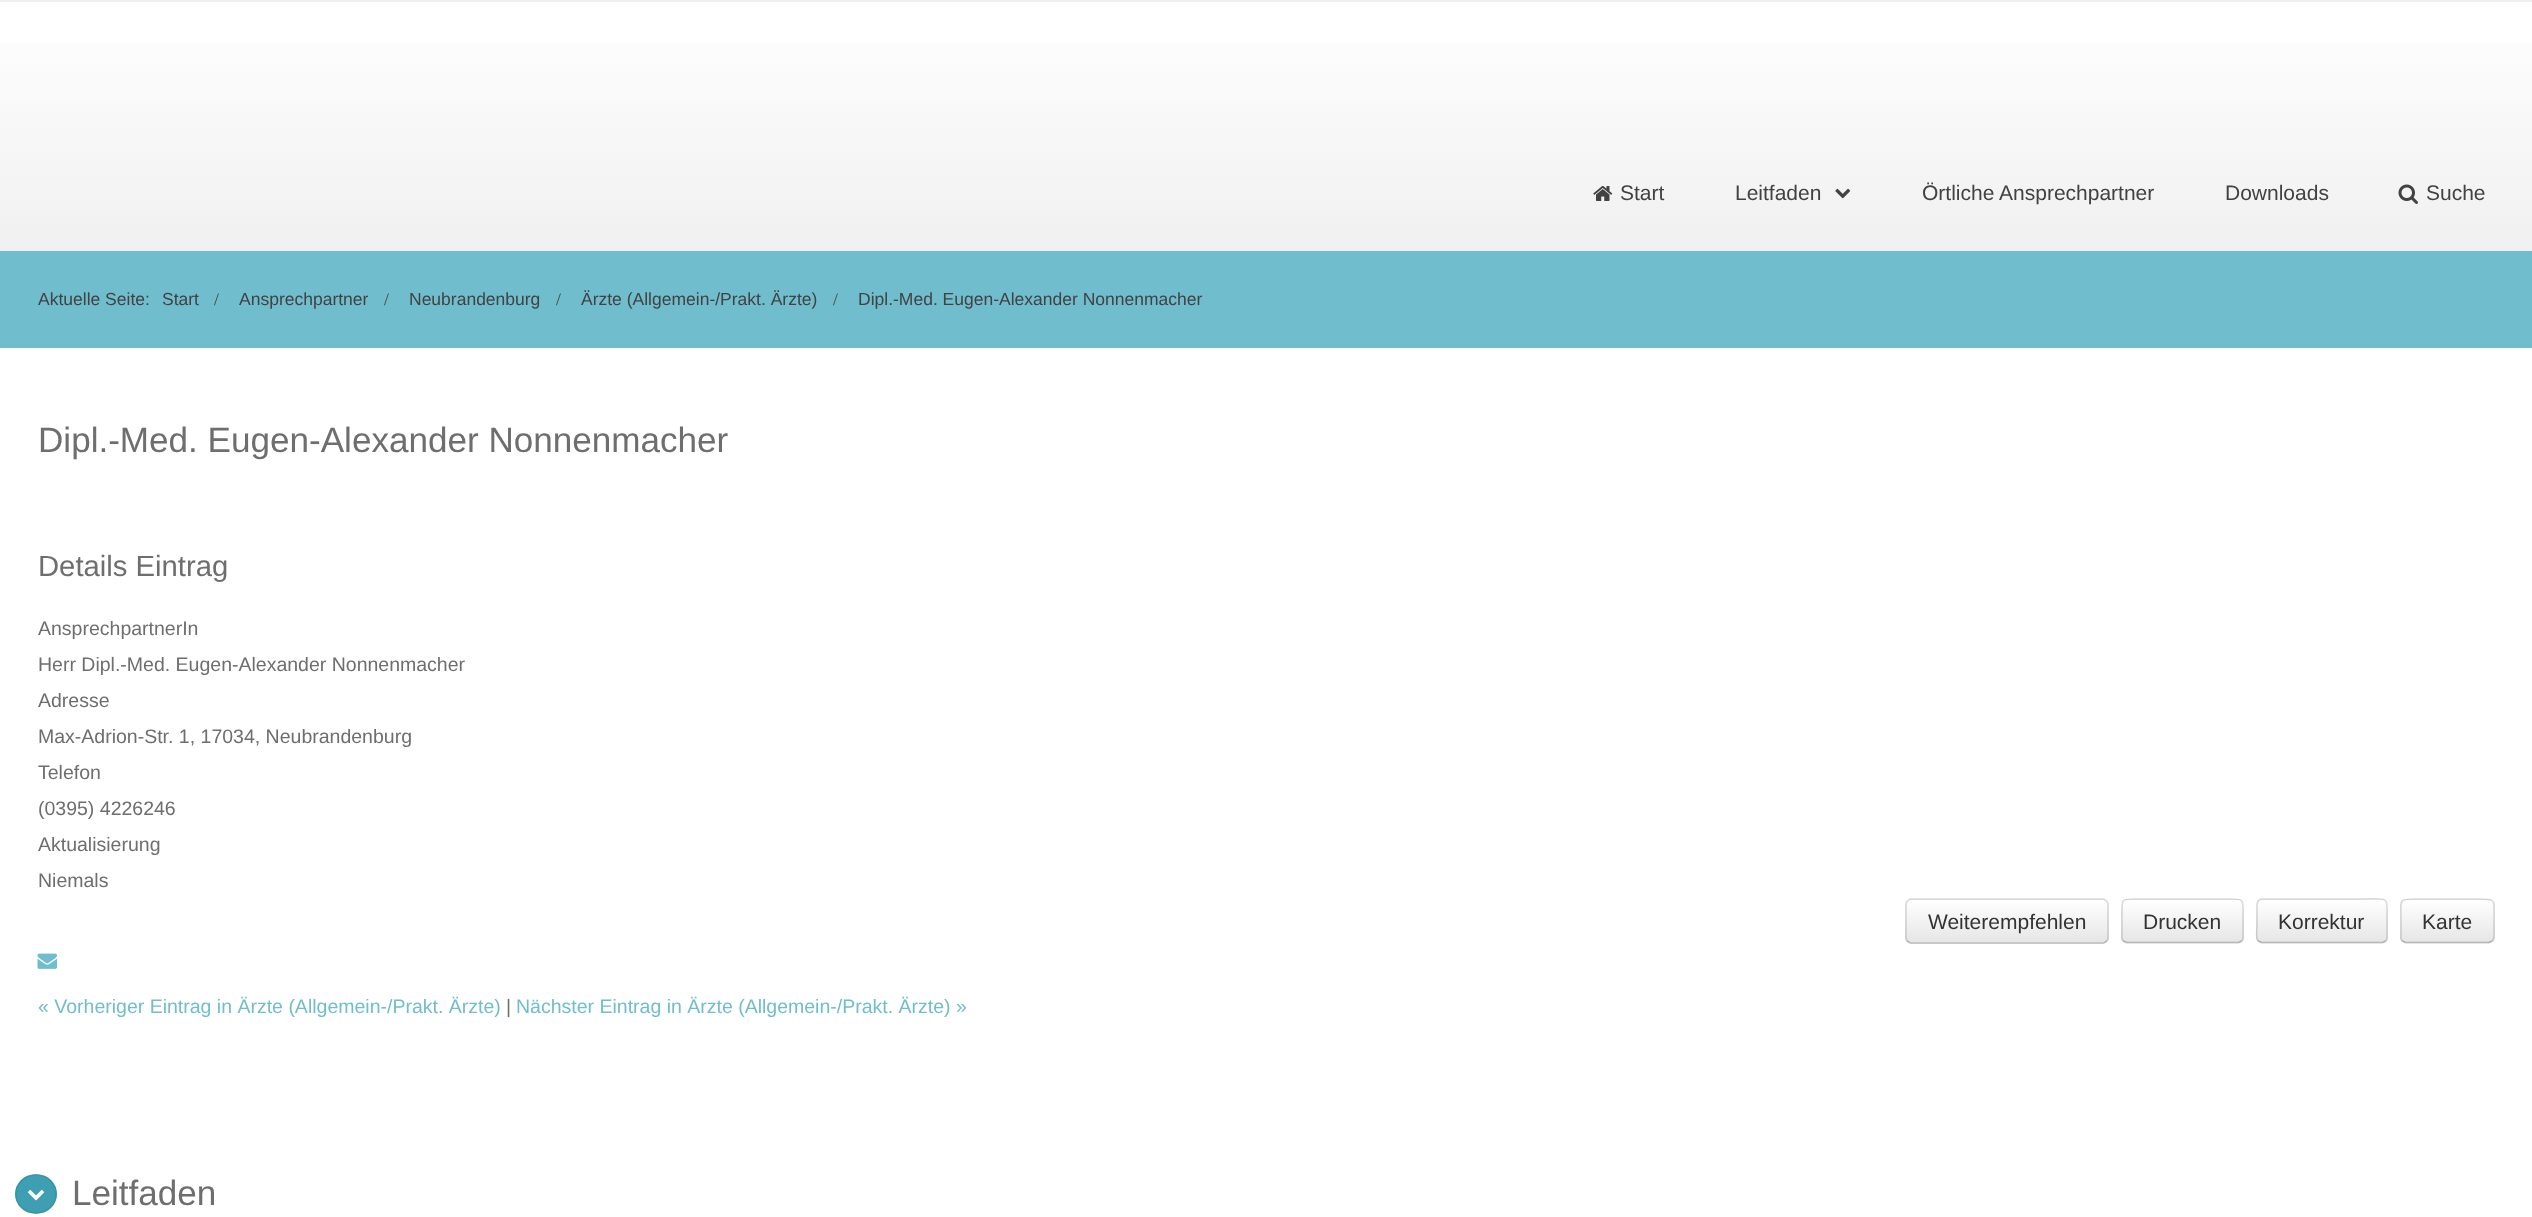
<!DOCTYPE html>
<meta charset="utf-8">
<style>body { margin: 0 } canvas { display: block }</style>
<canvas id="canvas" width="2532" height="1217"></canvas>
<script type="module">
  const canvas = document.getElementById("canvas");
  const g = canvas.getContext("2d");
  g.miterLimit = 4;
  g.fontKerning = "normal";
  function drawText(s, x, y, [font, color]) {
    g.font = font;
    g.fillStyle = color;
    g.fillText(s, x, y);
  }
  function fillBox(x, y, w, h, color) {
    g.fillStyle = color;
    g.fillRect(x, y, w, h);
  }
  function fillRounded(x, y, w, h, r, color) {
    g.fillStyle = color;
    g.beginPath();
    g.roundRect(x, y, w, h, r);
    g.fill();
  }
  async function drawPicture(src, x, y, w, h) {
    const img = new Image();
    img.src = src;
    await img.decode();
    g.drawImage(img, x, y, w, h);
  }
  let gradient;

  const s1 = ["21px Liberation Sans", "#424242"];
  const s2 = ["17.5px Liberation Sans", "#424242"];
  const s3 = ["17.5px Liberation Serif", "#424242"];
  const s4 = ["35.1px Liberation Sans", "#6E6E6E"];
  const s5 = ["29.25px Liberation Sans", "#6E6E6E"];
  const s6 = ["19.5px Liberation Sans", "#6E6E6E"];
  const s7 = ["21px Liberation Sans", "#333333"];
  const s8 = ["19.5px Liberation Sans", "#70BDCD"];

  fillBox(0, 0, 2532, 1217, "#FFFFFF");
  gradient = g.createLinearGradient(1266, 1.5, 1266, 251);
  gradient.addColorStop(0, "#FFFFFF");
  gradient.addColorStop(1, "#F0F0F0");
  g.fillStyle = gradient;
  g.fillRect(0, 43, 2532, 208);
  fillBox(0, 0, 2532, 2, "#F0F0F0");
  await drawPicture("pic1.png", 1593, 186, 20, 15);
  drawText("Start", 1620, 200, s1);
  drawText("Leitfaden", 1735, 200, s1);
  await drawPicture("pic2.png", 1835, 188, 16, 11);
  drawText("Örtliche Ansprechpartner", 1922, 200, s1);
  drawText("Downloads", 2225, 200, s1);
  await drawPicture("pic3.png", 2398, 184, 20, 20);
  drawText("Suche", 2426, 200, s1);
  fillBox(0, 251, 2532, 97, "#70BDCD");
  drawText("Aktuelle Seite:", 38, 305, s2);
  drawText("Start", 162, 305, s2);
  drawText("/", 214, 305, s3);
  drawText("Ansprechpartner", 239, 305, s2);
  drawText("/", 384, 305, s3);
  drawText("Neubrandenburg", 409, 305, s2);
  drawText("/", 556, 305, s3);
  drawText("Ärzte (Allgemein-/Prakt. Ärzte)", 581, 305, s2);
  drawText("/", 833, 305, s3);
  drawText("Dipl.-Med. Eugen-Alexander Nonnenmacher", 858, 305, s2);
  drawText("Dipl.-Med. Eugen-Alexander Nonnenmacher", 38, 452, s4);
  drawText("Details Eintrag", 38, 576, s5);
  drawText("AnsprechpartnerIn", 38, 635, s6);
  drawText("Herr Dipl.-Med. Eugen-Alexander Nonnenmacher", 38, 671, s6);
  drawText("Adresse", 38, 707, s6);
  drawText("Max-Adrion-Str. 1, 17034, Neubrandenburg", 38, 743, s6);
  drawText("Telefon", 38, 779, s6);
  drawText("(0395) 4226246", 38, 815, s6);
  drawText("Aktualisierung", 38, 851, s6);
  drawText("Niemals", 38, 887, s6);
  fillRounded(1905, 899, 204, 45, 6, "#F5F5F5");
  g.save();
  g.beginPath();
  g.roundRect(1905, 899, 204, 45, 6);
  g.clip();
  gradient = g.createLinearGradient(2007, 900, 2007, 942);
  gradient.addColorStop(0, "#FFFFFF");
  gradient.addColorStop(1, "#E6E6E6");
  g.fillStyle = gradient;
  g.fillRect(1905, 900, 204, 42);
  g.restore();
  g.beginPath();
  g.moveTo(2106.5, 941);
  g.bezierCurveTo(2105.5, 942, 2104.5, 943, 2103, 943);
  g.lineTo(1911, 943);
  g.bezierCurveTo(1909.5, 943, 1908.5, 942, 1907.5, 941);
  g.strokeStyle = "rgba(0, 0, 0, 0.25)";
  g.lineWidth = 1.5;
  g.stroke();
  g.beginPath();
  g.moveTo(1907.5, 941);
  g.bezierCurveTo(1906.5, 940, 1906, 939, 1906, 937.5);
  g.lineTo(1906, 904.5);
  g.bezierCurveTo(1906, 903, 1906.5, 902, 1907.5, 901);
  g.bezierCurveTo(1908.5, 900, 1909.5, 899, 1911, 899);
  g.lineTo(2103, 899);
  g.bezierCurveTo(2104.5, 899, 2105.5, 900, 2106.5, 901);
  g.bezierCurveTo(2107.5, 902, 2108, 903, 2108, 904.5);
  g.lineTo(2108, 937.5);
  g.bezierCurveTo(2108, 939, 2107.5, 940, 2106.5, 941);
  g.strokeStyle = "rgba(0, 0, 0, 0.15)";
  g.stroke();
  drawText("Weiterempfehlen", 1928, 929, s7);
  fillRounded(2121, 899, 123, 45, 6, "#F5F5F5");
  g.save();
  g.beginPath();
  g.roundRect(2121, 899, 123, 45, 6);
  g.clip();
  gradient = g.createLinearGradient(2183, 900, 2183, 942);
  gradient.addColorStop(0, "#FFFFFF");
  gradient.addColorStop(1, "#E6E6E6");
  g.fillStyle = gradient;
  g.fillRect(2121, 900, 123, 42);
  g.restore();
  g.beginPath();
  g.moveTo(2241.5, 941);
  g.lineTo(2238.5, 942.5);
  g.lineTo(2126.5, 942.5);
  g.lineTo(2123.5, 941);
  g.strokeStyle = "rgba(0, 0, 0, 0.25)";
  g.stroke();
  g.beginPath();
  g.moveTo(2123.5, 941);
  g.bezierCurveTo(2121, 939, 2122, 935, 2122, 932);
  g.lineTo(2122, 921);
  g.bezierCurveTo(2122, 895.5, 2118.5, 899, 2145.5, 899);
  g.lineTo(2219.5, 899);
  g.bezierCurveTo(2246.5, 899, 2243, 895.5, 2243, 921);
  g.lineTo(2243, 932);
  g.bezierCurveTo(2243, 935, 2244, 939, 2241.5, 941);
  g.strokeStyle = "rgba(0, 0, 0, 0.15)";
  g.stroke();
  drawText("Drucken", 2143, 929, s7);
  fillRounded(2256, 899, 132, 45, 6, "#F5F5F5");
  g.save();
  g.beginPath();
  g.roundRect(2256, 899, 132, 45, 6);
  g.clip();
  gradient = g.createLinearGradient(2322, 900, 2322, 942);
  gradient.addColorStop(0, "#FFFFFF");
  gradient.addColorStop(1, "#E6E6E6");
  g.fillStyle = gradient;
  g.fillRect(2256, 900, 132, 42);
  g.restore();
  g.beginPath();
  g.moveTo(2385.5, 941);
  g.lineTo(2382.5, 942.5);
  g.lineTo(2261.5, 942.5);
  g.lineTo(2258.5, 941);
  g.strokeStyle = "rgba(0, 0, 0, 0.25)";
  g.stroke();
  g.beginPath();
  g.moveTo(2258.5, 941);
  g.bezierCurveTo(2255, 938, 2257, 930, 2257, 926.5);
  g.lineTo(2257, 910);
  g.bezierCurveTo(2257, 906, 2256, 899.5, 2262, 899);
  g.lineTo(2362, 899);
  g.bezierCurveTo(2390.5, 899, 2387, 895, 2387, 921);
  g.lineTo(2387, 932);
  g.bezierCurveTo(2387, 935, 2388, 939, 2385.5, 941);
  g.strokeStyle = "rgba(0, 0, 0, 0.15)";
  g.stroke();
  drawText("Korrektur", 2278, 929, s7);
  fillRounded(2400, 899, 95, 45, 6, "#F5F5F5");
  g.save();
  g.beginPath();
  g.roundRect(2400, 899, 95, 45, 6);
  g.clip();
  gradient = g.createLinearGradient(2447, 900, 2447, 942);
  gradient.addColorStop(0, "#FFFFFF");
  gradient.addColorStop(1, "#E6E6E6");
  g.fillStyle = gradient;
  g.fillRect(2400, 900, 95, 42);
  g.restore();
  g.beginPath();
  g.moveTo(2492, 941);
  g.lineTo(2489, 942.5);
  g.lineTo(2405.5, 942.5);
  g.lineTo(2402.5, 941);
  g.strokeStyle = "rgba(0, 0, 0, 0.25)";
  g.stroke();
  g.beginPath();
  g.moveTo(2402.5, 941);
  g.bezierCurveTo(2400, 939, 2401, 935, 2401, 932);
  g.lineTo(2401, 921);
  g.bezierCurveTo(2401, 898, 2397, 899, 2420, 899);
  g.lineTo(2475, 899);
  g.bezierCurveTo(2497.5, 899, 2494, 898, 2494, 921);
  g.lineTo(2494, 932);
  g.bezierCurveTo(2494, 935, 2494.5, 939, 2492, 941);
  g.strokeStyle = "rgba(0, 0, 0, 0.15)";
  g.stroke();
  drawText("Karte", 2422, 929, s7);
  await drawPicture("pic4.png", 37, 953, 20, 16);
  drawText("« Vorheriger Eintrag in Ärzte (Allgemein-/Prakt. Ärzte)", 38, 1013, s8);
  drawText("|", 506, 1013, s6);
  drawText("Nächster Eintrag in Ärzte (Allgemein-/Prakt. Ärzte) »", 516, 1013, s8);
  g.fillStyle = "#3E9EB2";
  g.beginPath();
  g.ellipse(36, 1194, 21, 19.5, 0, 0, Math.PI * 2);
  g.fill();
  g.beginPath();
  g.moveTo(36, 1175);
  g.bezierCurveTo(62.5, 1175, 62.5, 1213, 36, 1213);
  g.bezierCurveTo(9.5, 1213, 9.5, 1175, 36, 1175);
  g.closePath();
  g.strokeStyle = "#3A94A7";
  g.stroke();
  drawText("Leitfaden", 72, 1205, s4);
  await drawPicture("pic5.png", 27, 1190, 18, 11);
</script>
